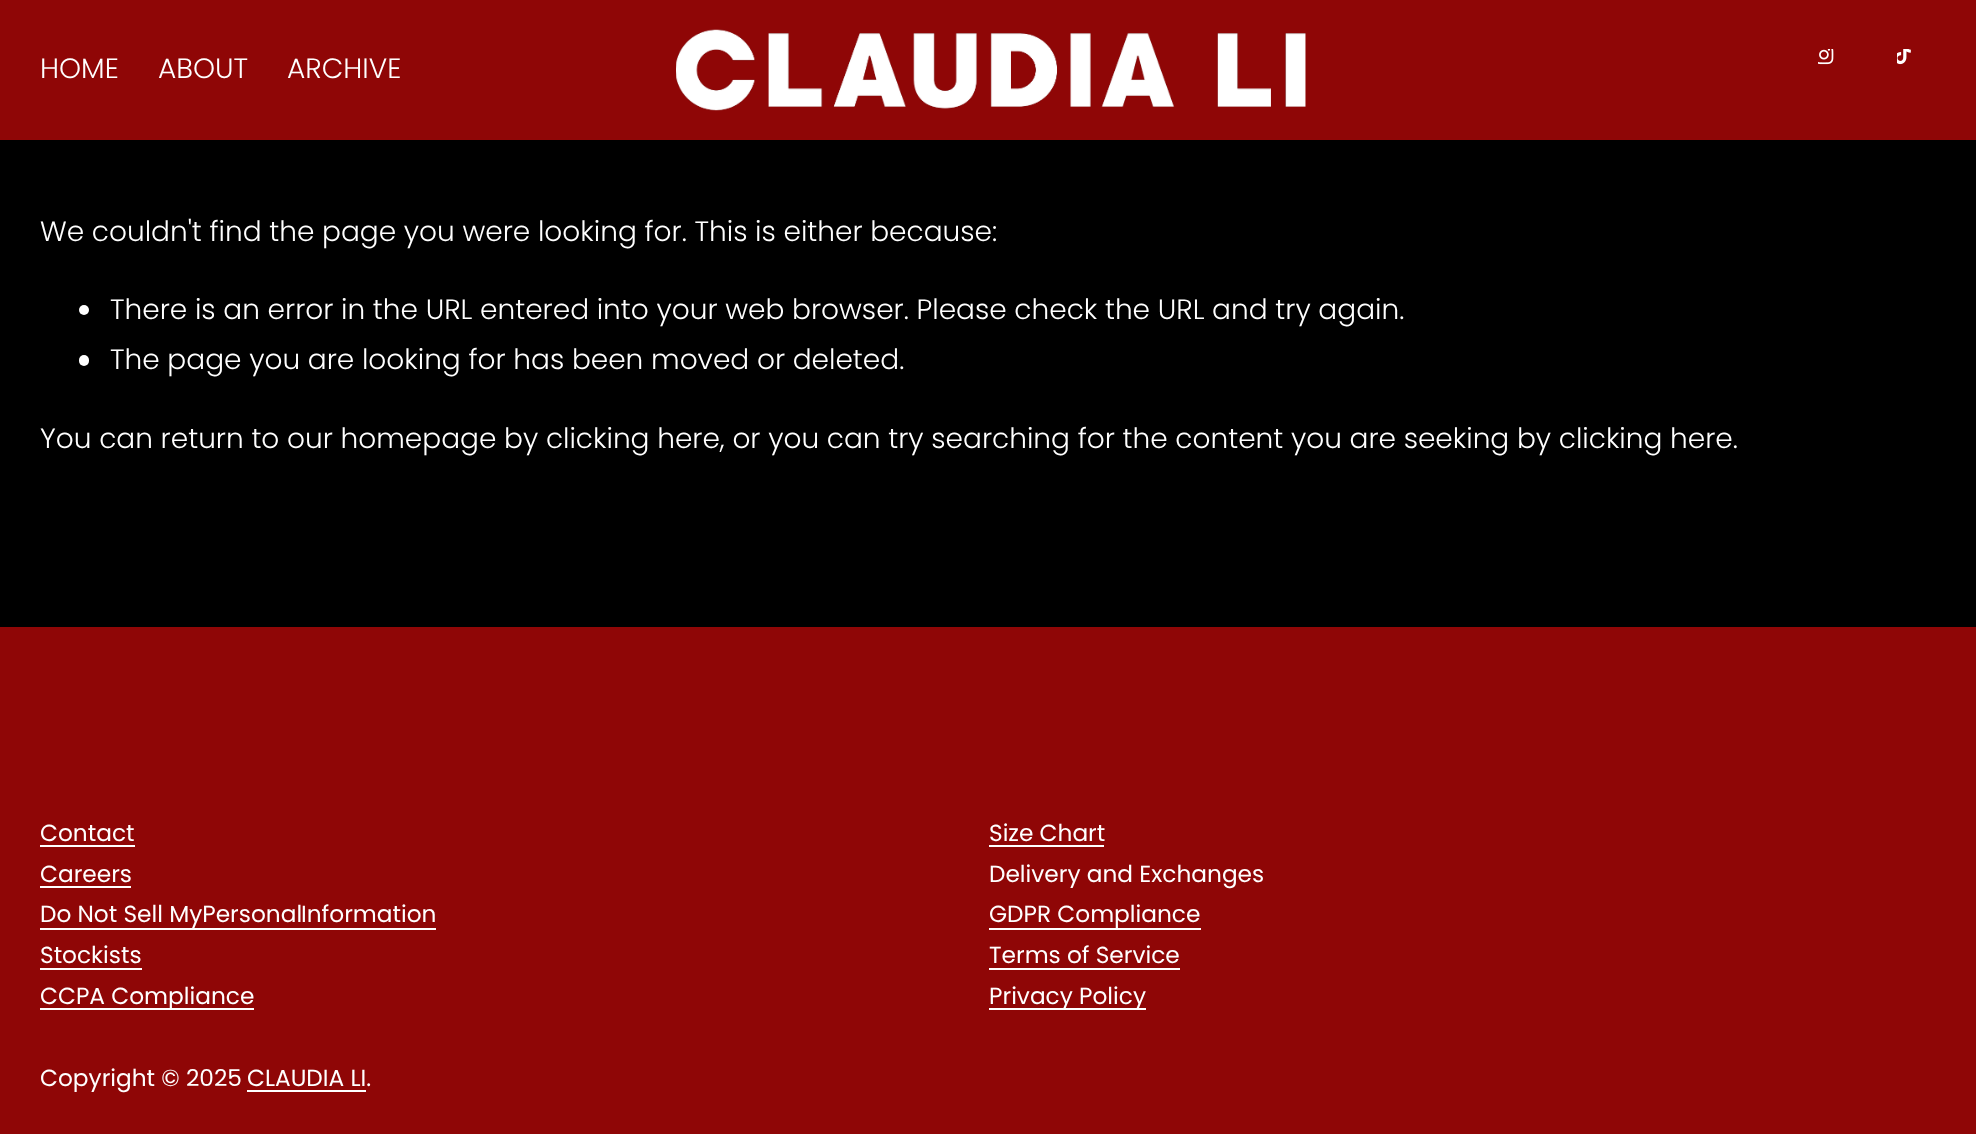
<!DOCTYPE html>
<meta charset="utf-8">
<style>body { margin: 0 } canvas { display: block }</style>
<canvas id="canvas" width="1976" height="1134"></canvas>
<script type="module">
  const canvas = document.getElementById("canvas");
  const g = canvas.getContext("2d");
  g.miterLimit = 4;
  g.fontKerning = "none";
  function drawText(s, x, y, [font, color]) {
    g.font = font;
    g.fillStyle = color;
    g.fillText(s, x, y);
  }
  function fillBox(x, y, w, h, color) {
    g.fillStyle = color;
    g.fillRect(x, y, w, h);
  }
  function fillRounded(x, y, w, h, r, color) {
    g.fillStyle = color;
    g.beginPath();
    g.roundRect(x, y, w, h, r);
    g.fill();
  }
  async function drawPicture(src, x, y, w, h) {
    const img = new Image();
    img.src = src;
    await img.decode();
    g.drawImage(img, x, y, w, h);
  }

  const s1 = ["300 28px Poppins", "#FFFFFF"];
  const s2 = ["23.25px Poppins", "#FFFFFF"];

  fillBox(0, 0, 1976, 1134, "#000000");
  fillBox(0, 0, 1976, 140, "#8F0606");
  drawText("HOME", 40, 78, s1);
  drawText("ABOUT", 158, 78, s1);
  drawText("ARCHIVE", 287, 78, s1);
  await drawPicture("pic1.png", 676, 29, 630, 82);
  await drawPicture("pic2.png", 1818, 49, 16, 16);
  await drawPicture("pic3.png", 1897, 49, 14, 16);
  drawText("We couldn't find the page you were looking for. This is either because:", 40, 241, s1);
  g.beginPath();
  g.arc(84, 310, 5, 0, Math.PI * 2);
  g.fill();
  drawText("There is an error in the URL entered into your web browser. Please check the URL and try again.", 110, 319, s1);
  fillRounded(79, 355, 10, 11, 5, "#FFFFFF");
  drawText("The page you are looking for has been moved or deleted.", 110, 369, s1);
  drawText("You can return to our homepage by clicking here, or you can try searching for the content you are seeking by clicking here.", 40, 448, s1);
  fillBox(0, 627, 1976, 507, "#8F0606");
  drawText("Contact", 40, 841, s2);
  fillBox(40, 845, 95, 2, "#FFFFFF");
  drawText("Size Chart", 989, 841, s2);
  fillBox(989, 845, 115, 2, "#FFFFFF");
  drawText("Careers", 40, 882, s2);
  fillBox(40, 886, 91, 2, "#FFFFFF");
  drawText("Delivery and Exchanges", 989, 882, s2);
  drawText("Do Not Sell MyPersonal", 40, 922, s2);
  fillBox(40, 928, 396, 2, "#FFFFFF");
  drawText("Information", 301, 922, s2);
  fillBox(989, 928, 212, 2, "#FFFFFF");
  drawText("GDPR Compliance", 989, 922, s2);
  drawText("Stockists", 40, 963, s2);
  fillBox(40, 968, 102, 2, "#FFFFFF");
  drawText("Terms of Service", 989, 963, s2);
  fillBox(989, 968, 191, 2, "#FFFFFF");
  fillBox(40, 1008, 214, 2, "#FFFFFF");
  drawText("CCPA Compliance", 40, 1004, s2);
  fillBox(989, 1008, 157, 2, "#FFFFFF");
  drawText("Privacy Policy", 989, 1004, s2);
  drawText("Copyright © 2025", 40, 1086, s2);
  drawText("CLAUDIA LI.", 247, 1086, s2);
  fillBox(247, 1090, 119, 2, "#FFFFFF");
</script>
